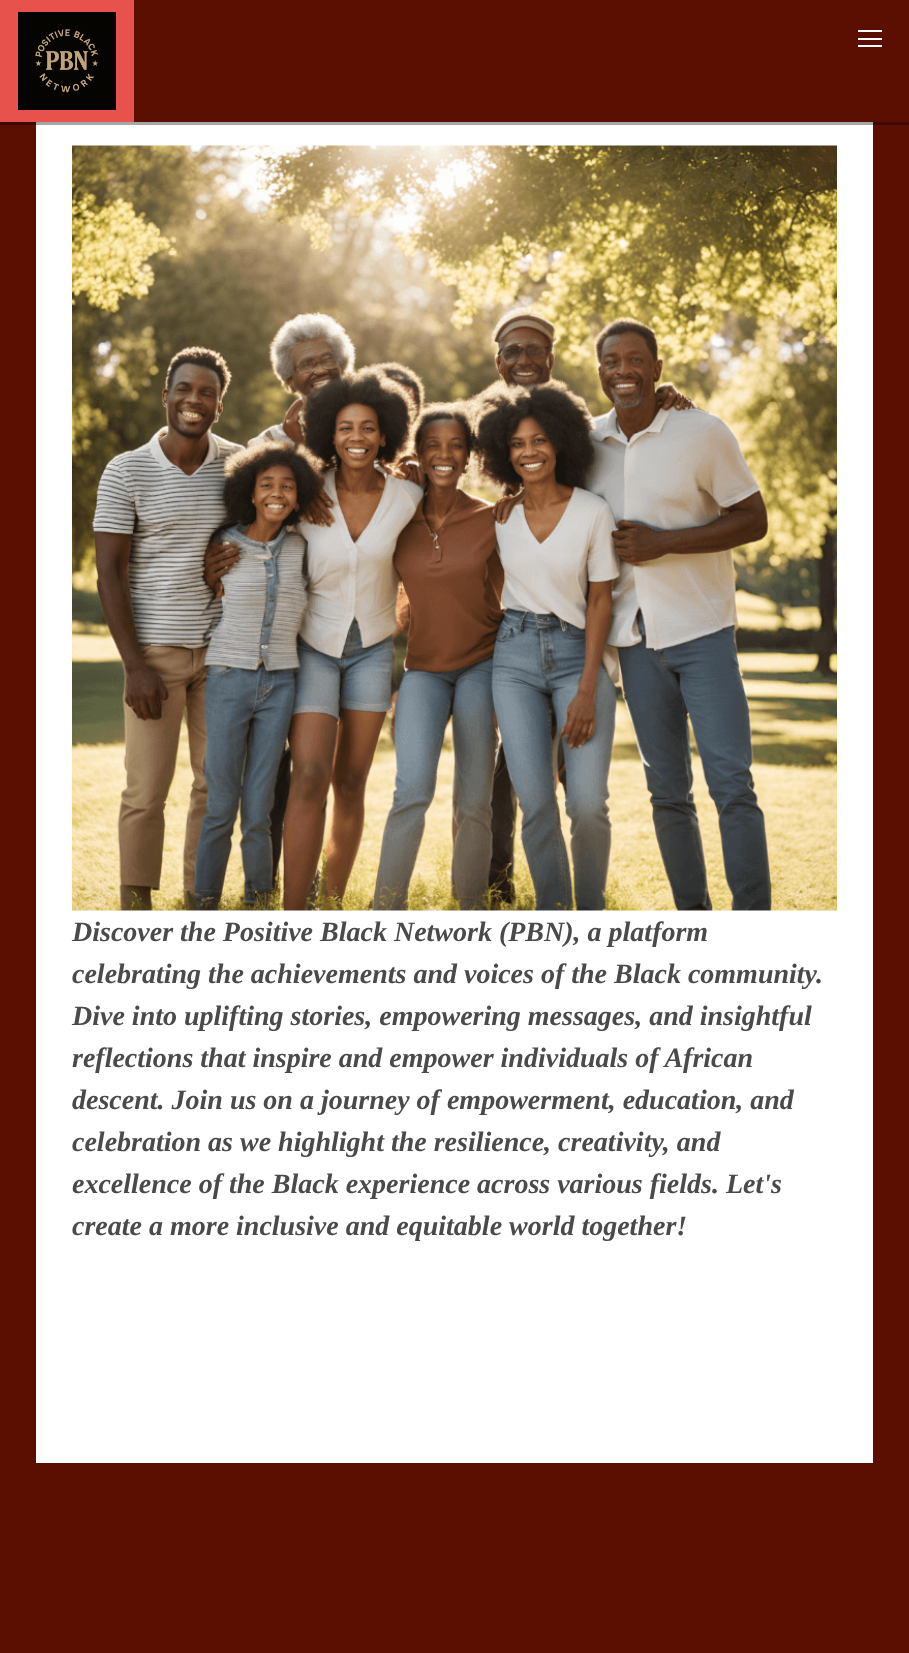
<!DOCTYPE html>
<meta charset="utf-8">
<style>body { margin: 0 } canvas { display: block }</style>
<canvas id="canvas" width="909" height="1653"></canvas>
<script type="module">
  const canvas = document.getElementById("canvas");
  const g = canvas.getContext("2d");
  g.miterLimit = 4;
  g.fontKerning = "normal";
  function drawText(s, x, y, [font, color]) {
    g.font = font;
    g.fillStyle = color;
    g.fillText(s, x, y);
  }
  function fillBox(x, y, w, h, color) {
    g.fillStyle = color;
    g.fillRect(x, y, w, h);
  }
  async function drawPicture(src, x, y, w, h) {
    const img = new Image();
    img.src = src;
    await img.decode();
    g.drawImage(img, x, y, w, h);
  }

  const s1 = ["italic bold 28px Liberation Serif", "#4A4A4A"];

  fillBox(0, 0, 909, 1653, "#5B0F00");
  fillBox(0, 122, 909, 3, "#3B0A00");
  fillBox(0, 0, 134, 122, "#E8524D");
  await drawPicture("pic1.png", 18, 12, 98, 98);
  fillBox(858, 30, 24, 2, "#FFFFFF");
  fillBox(858, 38, 24, 2, "#FFFFFF");
  fillBox(858, 45, 24, 2, "#FFFFFF");
  fillBox(36, 125, 837, 1338, "#FFFFFF");
  fillBox(36, 122, 837, 3, "#A6A6A6");
  await drawPicture("pic2.png", 72, 145, 765, 766);
  drawText("Discover the Positive Black Network (PBN), a platform", 72, 941, s1);
  drawText("celebrating the achievements and voices of the Black community.", 72, 983, s1);
  drawText("Dive into uplifting stories, empowering messages, and insightful", 72, 1025, s1);
  drawText("reflections that inspire and empower individuals of African", 72, 1067, s1);
  drawText("descent. Join us on a journey of empowerment, education, and", 72, 1109, s1);
  drawText("celebration as we highlight the resilience, creativity, and", 72, 1151, s1);
  drawText("excellence of the Black experience across various fields. Let's", 72, 1193, s1);
  drawText("create a more inclusive and equitable world together!", 72, 1235, s1);
</script>
